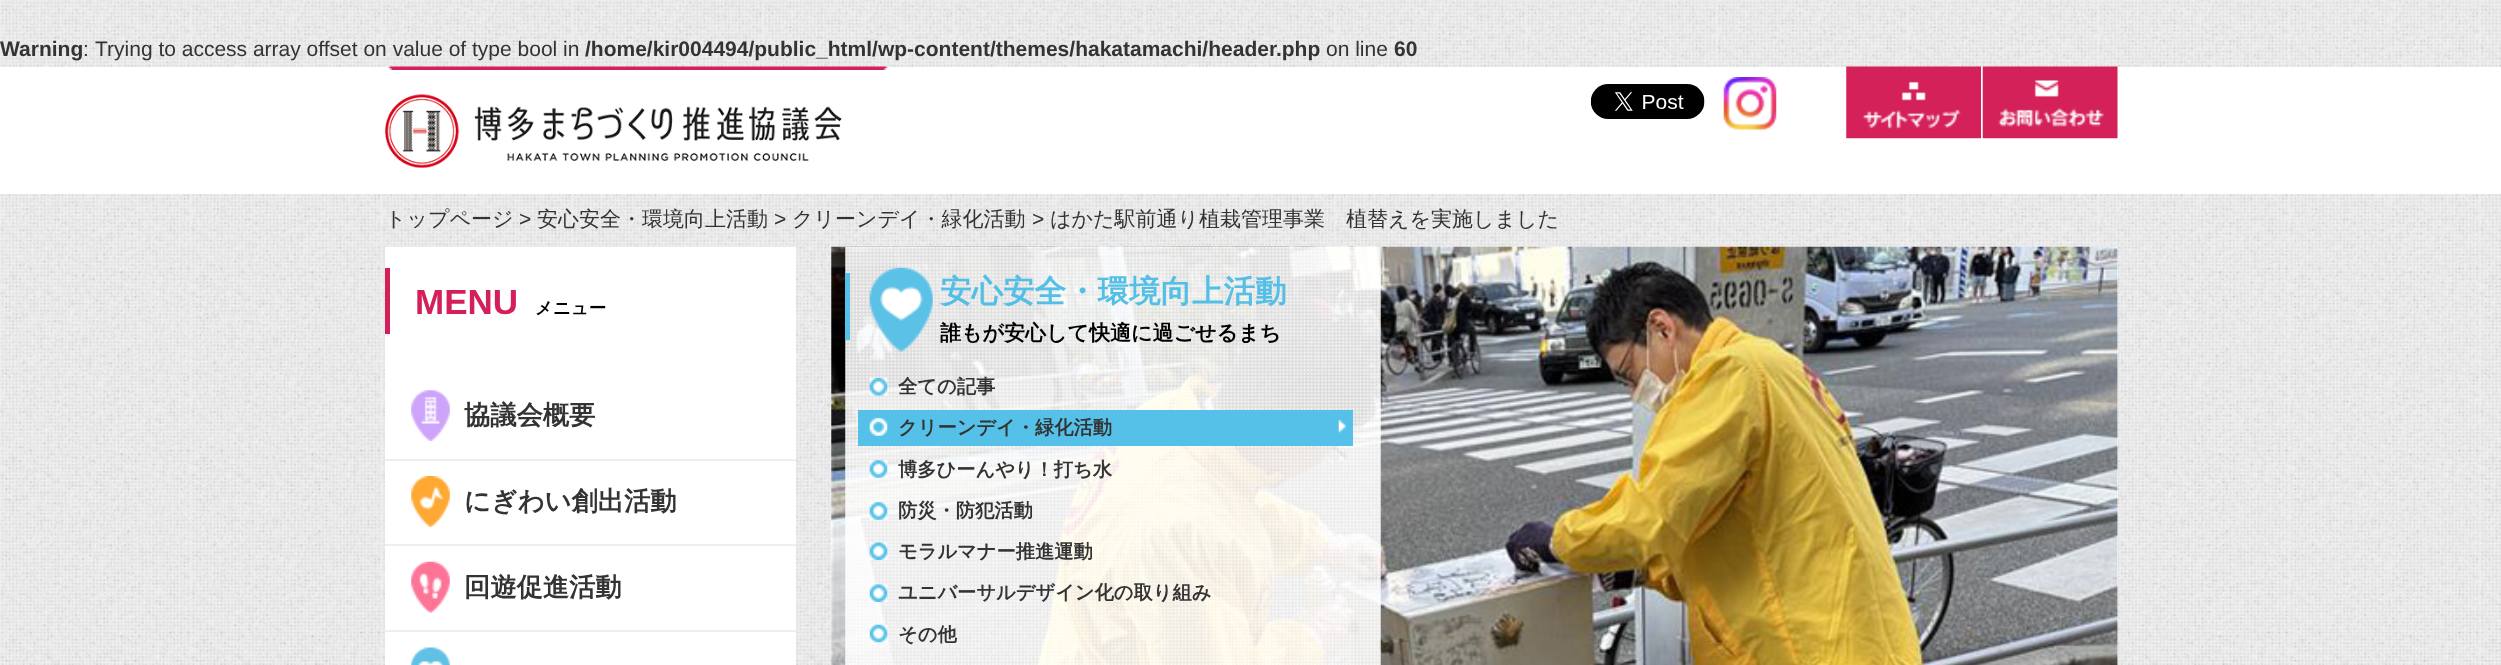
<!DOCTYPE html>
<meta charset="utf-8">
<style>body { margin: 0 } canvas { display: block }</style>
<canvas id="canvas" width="2501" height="665"></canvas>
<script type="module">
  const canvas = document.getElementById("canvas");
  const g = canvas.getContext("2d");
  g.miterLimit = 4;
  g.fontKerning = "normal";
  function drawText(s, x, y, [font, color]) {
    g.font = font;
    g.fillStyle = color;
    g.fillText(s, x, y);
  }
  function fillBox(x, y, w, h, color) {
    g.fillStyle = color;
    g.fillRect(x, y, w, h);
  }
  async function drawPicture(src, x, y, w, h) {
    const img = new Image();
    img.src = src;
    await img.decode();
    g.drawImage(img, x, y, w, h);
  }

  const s1 = ["bold 21px Liberation Sans", "#333333"];
  const s2 = ["21px Liberation Sans", "#333333"];
  const s3 = ["500 21px WenQuanYi Zen Hei", "#333333"];
  const s4 = ["bold 35px Liberation Sans", "#D32059"];
  const s5 = ["bold 17.5px WenQuanYi Zen Hei", "#000000"];
  const s6 = ["bold 26.25px WenQuanYi Zen Hei", "#333333"];
  const s7 = ["bold 31.5px WenQuanYi Zen Hei", "#54BFE6"];
  const s8 = ["bold 21px WenQuanYi Zen Hei", "#000000"];
  const s9 = ["bold 19.25px WenQuanYi Zen Hei", "#333333"];

  fillBox(0, 0, 2501, 665, "#FFFFFF");
  await drawPicture("pic1.png", 0, 0, 2501, 665);
  drawText("Warning", 0, 56, s1);
  drawText(":", 83, 56, s2);
  drawText("Trying to access array offset on value of type bool in", 95, 56, s2);
  drawText("/home/kir004494/public_html/wp-content/themes/hakatamachi/header.php", 585, 56, s1);
  drawText("on line", 1326, 56, s2);
  drawText("60", 1394, 56, s1);
  fillBox(0, 67, 2501, 127, "#FFFFFF");
  await drawPicture("pic2.png", 385, 66, 504, 102);
  await drawPicture("pic3.png", 1590, 84, 115, 35);
  await drawPicture("pic4.png", 1723, 77, 54, 53);
  await drawPicture("pic5.png", 1846, 66, 135, 73);
  await drawPicture("pic6.png", 1982, 66, 136, 73);
  drawText("トップページ", 385, 226, s3);
  drawText(">", 519, 226, s2);
  drawText("安心安全・環境向上活動", 537, 226, s3);
  drawText(">", 774, 226, s2);
  drawText("クリーンデイ・緑化活動", 792, 226, s3);
  drawText(">", 1032, 226, s2);
  drawText("はかた駅前通り植栽管理事業　植替えを実施しました", 1050, 226, s3);
  fillBox(385, 247, 411, 418, "#FFFFFF");
  fillBox(385, 268, 5, 66, "#D32059");
  drawText("MENU", 415, 314, s4);
  drawText("メニュー", 535, 314, s5);
  await drawPicture("pic7.png", 411, 390, 39, 51);
  fillBox(385, 459, 411, 2, "#EEEEEE");
  drawText("協議会概要", 464, 424, s6);
  await drawPicture("pic8.png", 411, 476, 39, 51);
  fillBox(385, 544, 411, 2, "#EEEEEE");
  drawText("にぎわい創出活動", 464, 510, s6);
  await drawPicture("pic9.png", 411, 561, 39, 52);
  fillBox(385, 630, 411, 2, "#EEEEEE");
  drawText("回遊促進活動", 464, 596, s6);
  await drawPicture("pic10.png", 411, 647, 39, 18);
  fillBox(831, 247, 1287, 418, "#FFFFFF");
  await drawPicture("pic11.png", 831, 246, 1287, 419);
  await drawPicture("pic12.png", 845, 246, 536, 419);
  await drawPicture("pic13.png", 869, 267, 64, 85);
  fillBox(845, 273, 5, 67, "#56C1E8");
  drawText("安心安全・環境向上活動", 940, 302, s7);
  drawText("誰もが安心して快適に過ごせるまち", 940, 340, s8);
  await drawPicture("pic14.png", 869, 378, 19, 18);
  drawText("全ての記事", 898, 393, s9);
  fillBox(858, 410, 495, 36, "#56C1E8");
  await drawPicture("pic15.png", 869, 418, 19, 18);
  drawText("クリーンデイ・緑化活動", 898, 434, s9);
  await drawPicture("pic16.png", 1338, 420, 8, 13);
  await drawPicture("pic17.png", 869, 460, 19, 18);
  drawText("博多ひーんやり！打ち水", 898, 476, s9);
  await drawPicture("pic18.png", 869, 502, 19, 18);
  drawText("防災・防犯活動", 898, 517, s9);
  await drawPicture("pic19.png", 869, 542, 19, 18);
  drawText("モラルマナー推進運動", 898, 558, s9);
  await drawPicture("pic20.png", 869, 584, 19, 18);
  drawText("ユニバーサルデザイン化の取り組み", 898, 599, s9);
  await drawPicture("pic21.png", 869, 624, 19, 19);
  drawText("その他", 898, 641, s9);
</script>
